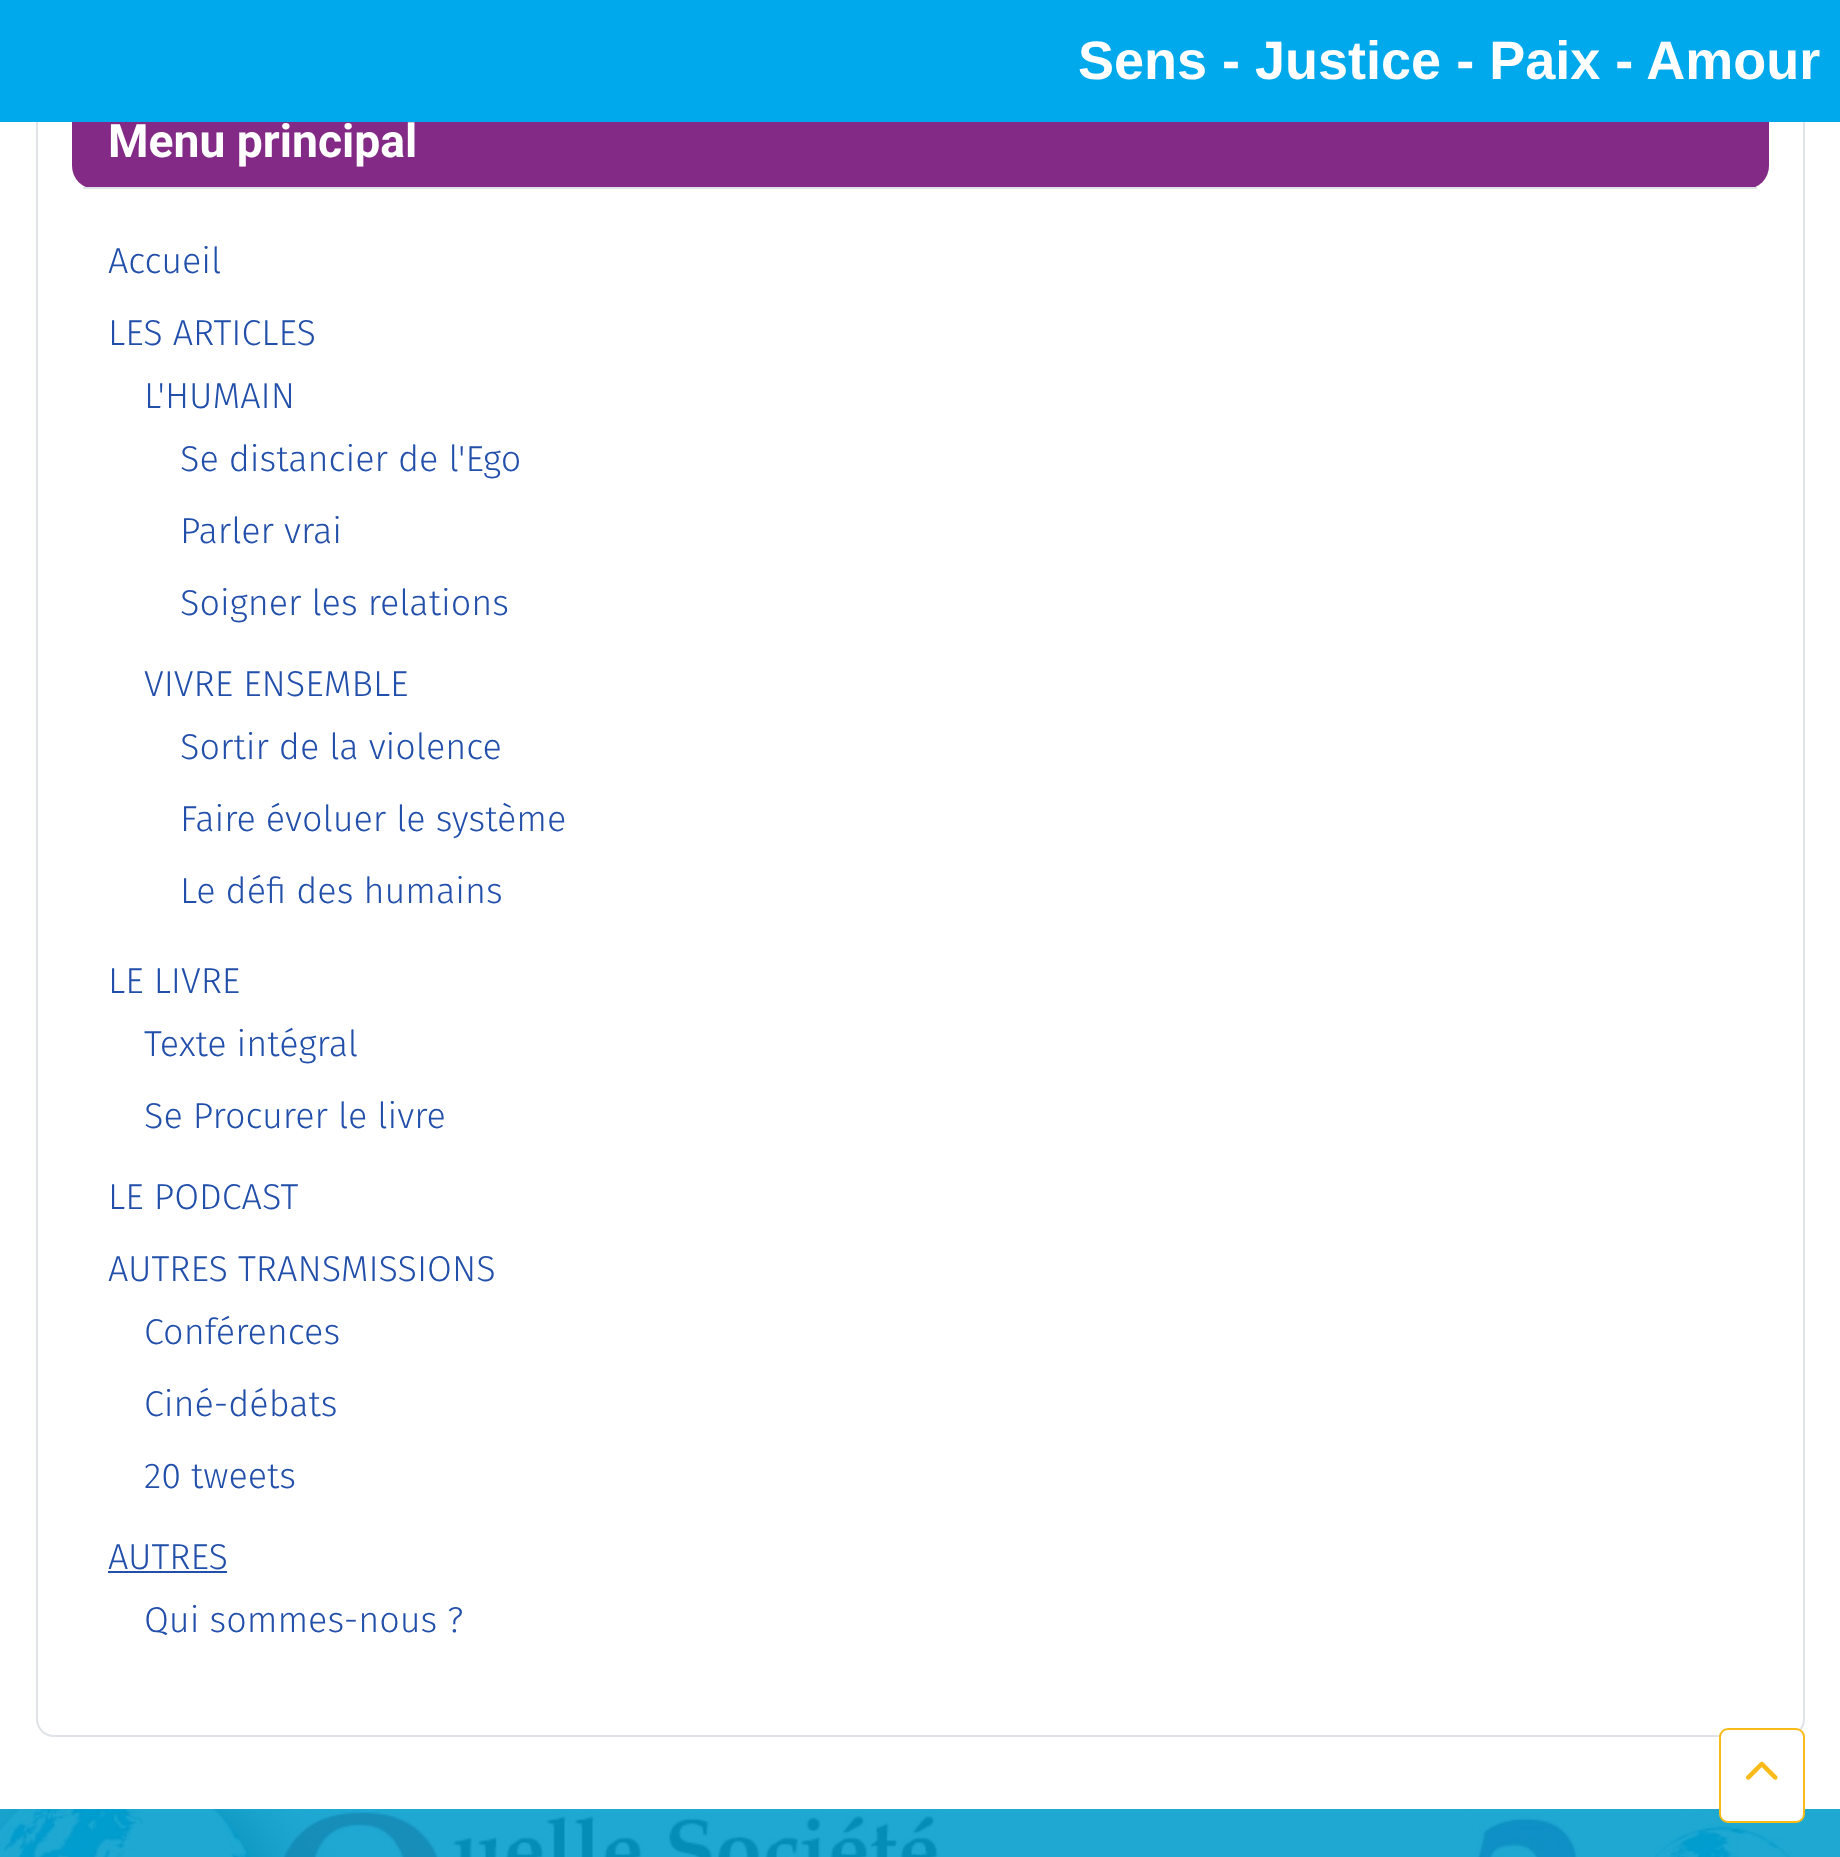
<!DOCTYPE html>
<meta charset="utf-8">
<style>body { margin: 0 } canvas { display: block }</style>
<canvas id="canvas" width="1840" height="1857"></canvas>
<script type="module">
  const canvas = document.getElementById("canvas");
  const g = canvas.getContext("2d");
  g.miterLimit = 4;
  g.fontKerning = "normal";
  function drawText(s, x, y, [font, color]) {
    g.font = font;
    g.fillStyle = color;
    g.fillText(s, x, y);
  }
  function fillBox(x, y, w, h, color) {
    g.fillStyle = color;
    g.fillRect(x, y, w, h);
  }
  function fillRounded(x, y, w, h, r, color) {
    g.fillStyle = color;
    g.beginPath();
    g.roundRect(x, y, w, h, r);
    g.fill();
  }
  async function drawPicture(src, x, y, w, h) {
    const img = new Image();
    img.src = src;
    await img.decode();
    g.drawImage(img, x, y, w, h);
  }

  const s1 = ["bold 54px Liberation Sans", "#FFFFFF"];
  const s2 = ["bold 46.25px Roboto", "#FFFFFF"];
  const s3 = ["300 36px Fira Sans", "#224FAA"];

  fillBox(0, 0, 1840, 1857, "#FFFFFF");
  fillBox(0, 1809, 1840, 48, "#1FA8D2");
  g.beginPath();
  g.roundRect(37, 62, 1767, 1674, 17);
  g.strokeStyle = "#DFE3E7";
  g.lineWidth = 2;
  g.stroke();
  fillRounded(72, 97, 1697, 92, 23, "#822A85");
  fillBox(0, 0, 1840, 122, "#00A8EC");
  drawText("Sens - Justice - Paix - Amour", 1078, 79, s1);
  fillBox(83, 187, 1674, 2, "#DFE3E7");
  drawText("Menu principal", 108, 157, s2);
  drawText("Accueil", 108, 273, s3);
  drawText("LES ARTICLES", 108, 345, s3);
  drawText("L'HUMAIN", 144, 408, s3);
  drawText("Se distancier de l'Ego", 180, 471, s3);
  drawText("Parler vrai", 180, 543, s3);
  drawText("Soigner les relations", 180, 615, s3);
  drawText("VIVRE ENSEMBLE", 144, 696, s3);
  drawText("Sortir de la violence", 180, 759, s3);
  drawText("Faire évoluer le système", 180, 831, s3);
  drawText("Le défi des humains", 180, 903, s3);
  drawText("LE LIVRE", 108, 993, s3);
  drawText("Texte intégral", 144, 1056, s3);
  drawText("Se Procurer le livre", 144, 1128, s3);
  drawText("LE PODCAST", 108, 1209, s3);
  drawText("AUTRES TRANSMISSIONS", 108, 1281, s3);
  drawText("Conférences", 144, 1344, s3);
  drawText("Ciné-débats", 144, 1416, s3);
  drawText("20 tweets", 144, 1488, s3);
  drawText("AUTRES", 108, 1569, s3);
  fillBox(108, 1571, 119, 2, "#224FAA");
  drawText("Qui sommes-nous ?", 144, 1632, s3);
  await drawPicture("pic2.png", 0, 1809, 1795, 48);
  g.fillStyle = "#FFFFFF";
  g.beginPath();
  g.roundRect(1720, 1729, 84, 93, 8);
  g.fill();
  g.strokeStyle = "#F8BB19";
  g.stroke();
  await drawPicture("pic1.png", 1746, 1761, 32, 19);
</script>
